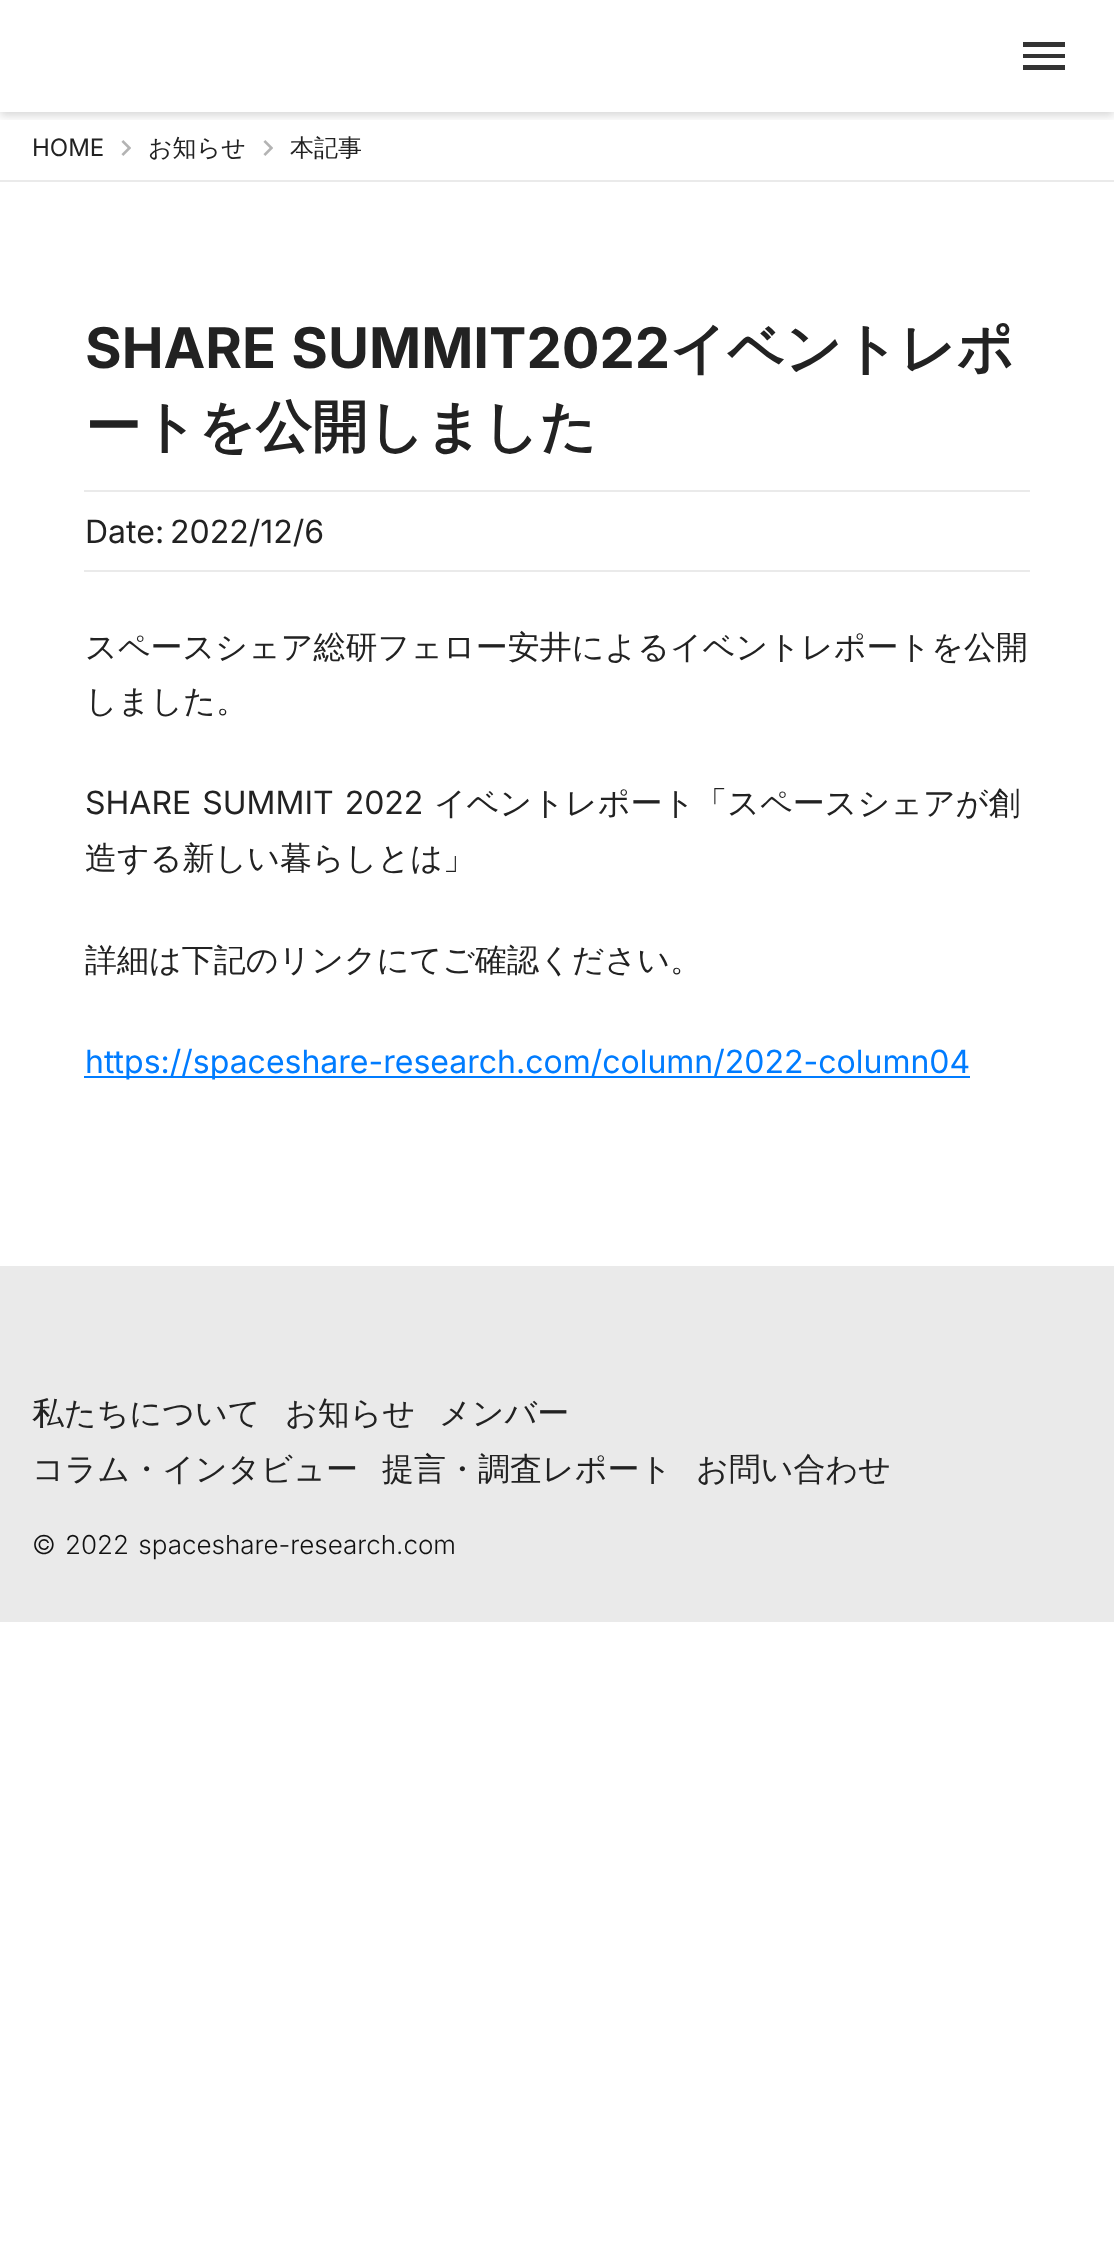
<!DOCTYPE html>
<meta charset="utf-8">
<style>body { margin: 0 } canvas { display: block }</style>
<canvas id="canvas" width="1114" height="2260"></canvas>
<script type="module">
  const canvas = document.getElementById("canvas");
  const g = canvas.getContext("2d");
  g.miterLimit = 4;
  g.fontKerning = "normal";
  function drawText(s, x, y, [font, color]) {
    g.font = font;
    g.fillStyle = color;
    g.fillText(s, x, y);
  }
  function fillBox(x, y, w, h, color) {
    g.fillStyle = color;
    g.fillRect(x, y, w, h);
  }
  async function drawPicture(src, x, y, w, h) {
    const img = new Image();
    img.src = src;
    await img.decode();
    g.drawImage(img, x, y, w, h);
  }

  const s1 = ["24px Inter", "#222222"];
  const s2 = ["500 24px WenQuanYi Zen Hei", "#222222"];
  const s3 = ["bold 56px Inter", "#222222"];
  const s4 = ["bold 56px WenQuanYi Zen Hei", "#222222"];
  const s5 = ["32px Inter", "#222222"];
  const s6 = ["500 32px WenQuanYi Zen Hei", "#222222"];
  const s7 = ["32px Inter", "#007CFF"];
  const s8 = ["300 26px Inter", "#111111"];

  fillBox(0, 0, 1114, 2260, "#FFFFFF");
  g.save();
  g.beginPath();
  g.rect(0, 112, 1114, 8);
  g.clip();
  g.fillStyle = "rgba(0, 0, 0, 0.15)";
  g.filter = "blur(4px)";
  g.beginPath();
  g.rect(0, 4, 1114, 112);
  g.fill();
  g.filter = "none";
  g.restore();
  g.fillStyle = "#333333";
  g.beginPath();
  g.moveTo(1023, 42);
  g.lineTo(1065, 42);
  g.lineTo(1065, 47);
  g.lineTo(1023, 47);
  g.closePath();
  g.moveTo(1023, 58);
  g.lineTo(1023, 54);
  g.lineTo(1065, 54);
  g.lineTo(1065, 58);
  g.closePath();
  g.moveTo(1023, 70);
  g.lineTo(1023, 65);
  g.lineTo(1065, 65);
  g.lineTo(1065, 70);
  g.closePath();
  g.fill();
  fillBox(0, 180, 1114, 2, "#EAEAEA");
  drawText("HOME", 32, 156, s1);
  await drawPicture("pic1.png", 121, 140, 10, 16);
  drawText("お知らせ", 148, 156, s2);
  await drawPicture("pic1.png", 263, 140, 10, 16);
  drawText("本記事", 290, 156, s2);
  g.wordSpacing = "2px";
  drawText("SHARE SUMMIT2022", 85, 368, s3);
  g.wordSpacing = "0px";
  drawText("イベントレポ", 670, 368, s4);
  drawText("ートを公開しました", 85, 446, s4);
  fillBox(84, 490, 946, 2, "#EAEAEA");
  fillBox(84, 570, 946, 2, "#EAEAEA");
  drawText("Date:", 85, 543, s5);
  drawText("2022/12/6", 170, 543, s5);
  drawText("スペースシェア総研フェロー安井によるイベントレポートを公開", 85, 658, s6);
  drawText("しました。", 85, 712, s6);
  g.wordSpacing = "2px";
  drawText("SHARE SUMMIT 2022", 85, 814, s5);
  g.wordSpacing = "0px";
  drawText("イベントレポート「スペースシェアが創", 434, 814, s6);
  drawText("造する新しい暮らしとは」", 85, 869, s6);
  drawText("詳細は下記のリンクにてご確認ください。", 85, 971, s6);
  fillBox(84, 1076, 886, 2, "#007CFF");
  drawText("https://spaceshare-research.com/column/2022-column04", 85, 1073, s7);
  fillBox(0, 1266, 1114, 356, "#EAEAEA");
  drawText("私たちについて", 32, 1424, s6);
  drawText("お知らせ", 285, 1424, s6);
  drawText("メンバー", 439, 1424, s6);
  drawText("コラム・インタビュー", 32, 1480, s6);
  drawText("提言・調査レポート", 382, 1480, s6);
  drawText("お問い合わせ", 696, 1480, s6);
  g.wordSpacing = "2px";
  drawText("©︎ 2022 spaceshare-research.com", 32, 1554, s8);
</script>
